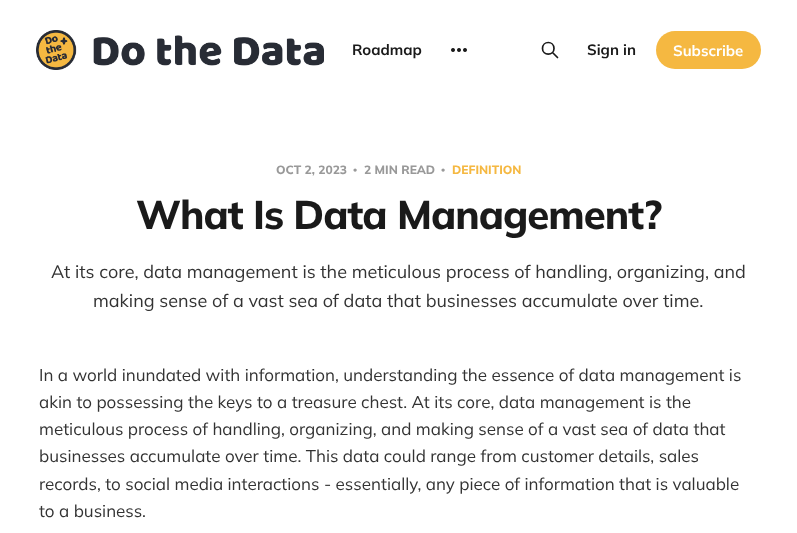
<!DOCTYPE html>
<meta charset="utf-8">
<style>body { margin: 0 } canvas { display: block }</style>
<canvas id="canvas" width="797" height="533"></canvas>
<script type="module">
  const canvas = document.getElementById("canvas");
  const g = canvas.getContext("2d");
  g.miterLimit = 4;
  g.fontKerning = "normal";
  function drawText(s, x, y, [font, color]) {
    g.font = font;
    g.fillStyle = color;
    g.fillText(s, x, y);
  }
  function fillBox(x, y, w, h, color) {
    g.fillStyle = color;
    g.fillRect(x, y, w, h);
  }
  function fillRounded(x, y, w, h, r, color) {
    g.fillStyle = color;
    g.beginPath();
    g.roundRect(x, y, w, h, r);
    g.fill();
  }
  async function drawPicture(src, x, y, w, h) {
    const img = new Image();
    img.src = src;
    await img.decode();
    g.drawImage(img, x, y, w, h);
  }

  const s1 = ["200 15px Mulish", "#1A1A1A"];
  const s2 = ["200 15px Mulish", "#FFFFFF"];
  const s3 = ["200 12px 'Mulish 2'", "#999999"];
  const s4 = ["bold 12px Liberation Serif", "#999999"];
  const s5 = ["200 12px 'Mulish 2'", "#F5B841"];
  const s6 = ["200 40px 'Mulish 2'", "#1A1A1A"];
  const s7 = ["200 18px 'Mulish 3'", "#333333"];
  const s8 = ["200 17px 'Mulish 3'", "#333333"];

  fillBox(0, 0, 797, 533, "#FFFFFF");
  await drawPicture("pic1.png", 36, 30, 288, 40);
  drawText("Roadmap", 352, 55, s1);
  await drawPicture("pic2.png", 451, 48, 16, 4);
  g.beginPath();
  g.moveTo(557.5, 57.5);
  g.lineTo(552.5, 52.5);
  g.moveTo(554, 48.5);
  g.bezierCurveTo(554, 56, 542.5, 56, 542.5, 48.5);
  g.bezierCurveTo(542.5, 40.5, 554, 40.5, 554, 48.5);
  g.closePath();
  g.strokeStyle = "#1A1A1A";
  g.lineWidth = 1.7;
  g.lineCap = "round";
  g.lineJoin = "round";
  g.stroke();
  drawText("Sign in", 587, 55, s1);
  fillRounded(656, 31, 105, 38, 19, "#F5B841");
  drawText("Subscribe", 673, 56, s2);
  drawText("OCT 2, 2023", 276, 174, s3);
  drawText("•", 353, 174, s4);
  drawText("2 MIN READ", 364, 174, s3);
  drawText("•", 441, 174, s4);
  drawText("DEFINITION", 452, 174, s5);
  g.letterSpacing = "-1px";
  drawText("What Is Data Management?", 136, 229, s6);
  g.letterSpacing = "0px";
  drawText("At its core, data management is the meticulous process of handling, organizing, and", 51, 278, s7);
  drawText("making sense of a vast sea of data that businesses accumulate over time.", 93, 307, s7);
  drawText("In a world inundated with information, understanding the essence of data management is", 39, 381, s8);
  drawText("akin to possessing the keys to a treasure chest. At its core, data management is the", 39, 408, s8);
  drawText("meticulous process of handling, organizing, and making sense of a vast sea of data that", 39, 435, s8);
  drawText("businesses accumulate over time. This data could range from customer details, sales", 39, 462, s8);
  drawText("records, to social media interactions - essentially, any piece of information that is valuable", 39, 490, s8);
  drawText("to a business.", 39, 517, s8);
</script>
